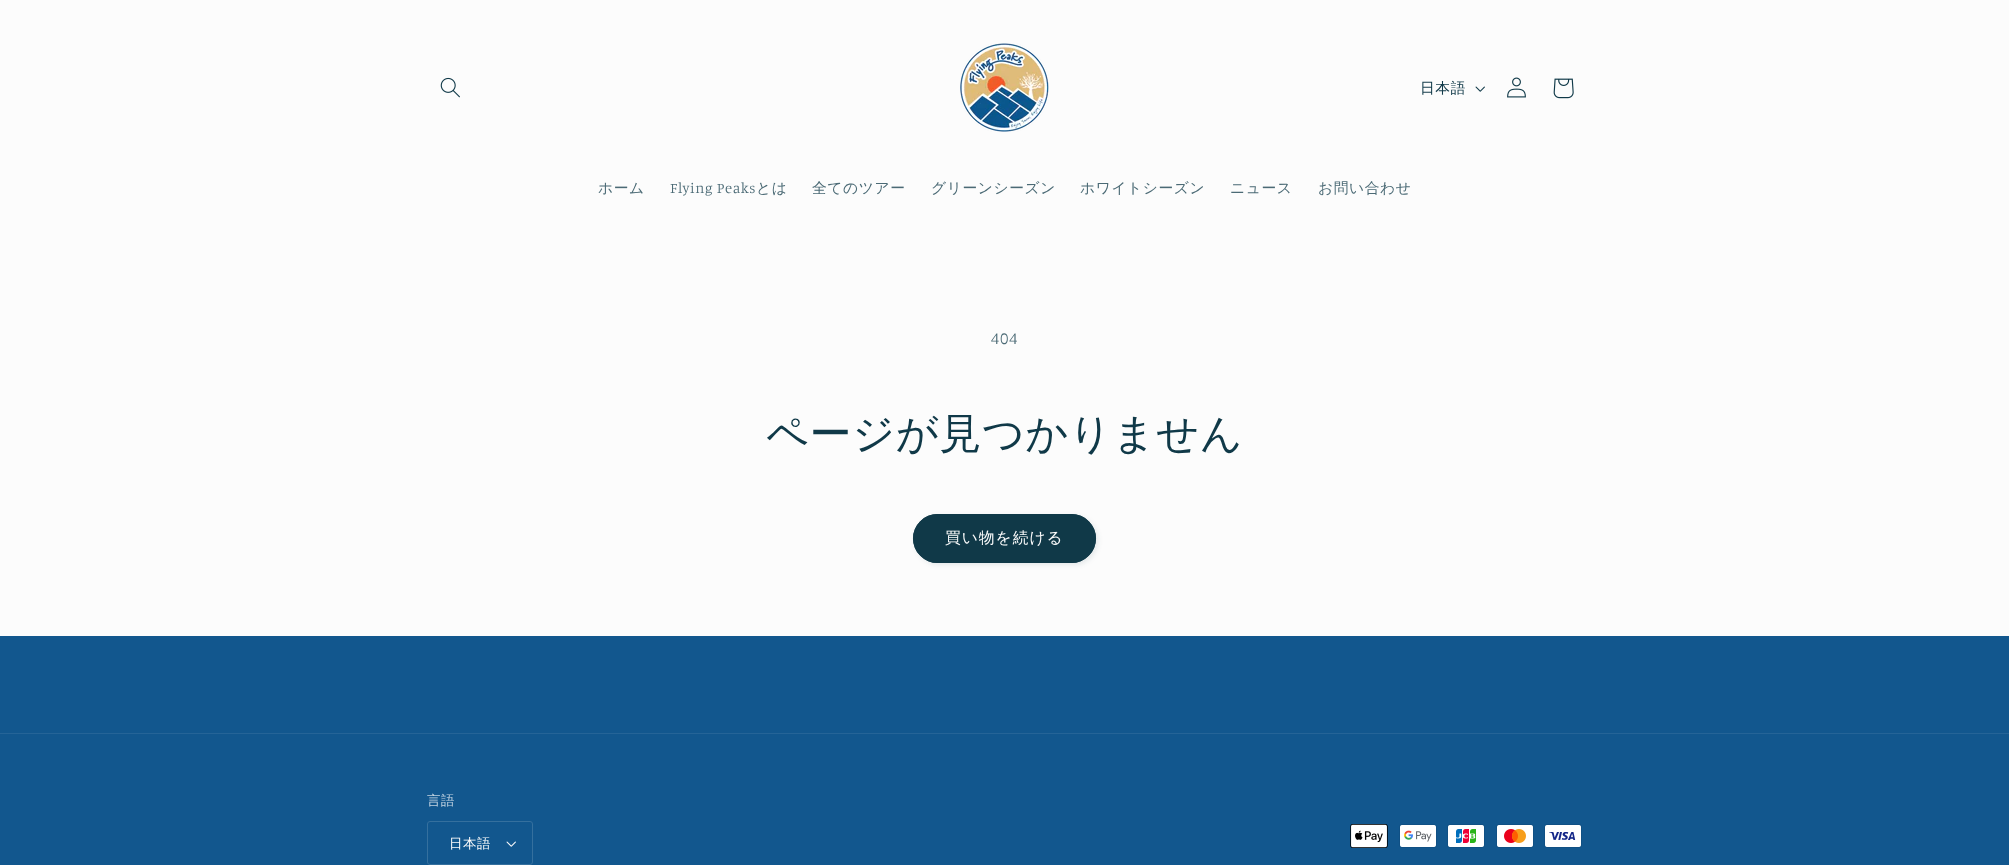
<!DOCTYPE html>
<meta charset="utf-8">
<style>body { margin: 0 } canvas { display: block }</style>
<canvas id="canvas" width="2009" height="865"></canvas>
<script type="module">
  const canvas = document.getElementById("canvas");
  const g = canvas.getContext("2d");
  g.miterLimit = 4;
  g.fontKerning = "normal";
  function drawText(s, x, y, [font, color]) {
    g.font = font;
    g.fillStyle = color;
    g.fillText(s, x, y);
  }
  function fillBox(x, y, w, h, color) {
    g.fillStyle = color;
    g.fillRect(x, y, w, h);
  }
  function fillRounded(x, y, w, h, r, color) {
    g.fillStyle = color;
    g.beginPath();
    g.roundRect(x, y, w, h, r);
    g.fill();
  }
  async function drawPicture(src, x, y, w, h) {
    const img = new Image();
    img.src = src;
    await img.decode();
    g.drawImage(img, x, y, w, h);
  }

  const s1 = ["500 14.75px WenQuanYi Zen Hei", "#103948"];
  const s2 = ["500 14.75px WenQuanYi Zen Hei", "#4B6A75"];
  const s3 = ["300 14.75px Manuale", "#4B6A75"];
  const s4 = ["300 17px Manuale", "#4B6A75"];
  const s5 = ["500 42px WenQuanYi Zen Hei", "#103948"];
  const s6 = ["500 15.75px WenQuanYi Zen Hei", "#FCFCFC"];
  const s7 = ["500 13.5px WenQuanYi Zen Hei", "#C2D3E1"];
  const s8 = ["500 13.5px WenQuanYi Zen Hei", "#FCFCFC"];

  fillBox(0, 0, 2009, 865, "#FCFCFC");
  await drawPicture("pic1.png", 440, 77, 20, 21);
  await drawPicture("pic2.png", 960, 43, 89, 89);
  g.letterSpacing = "0.6px";
  drawText("日本語", 1420, 93, s1);
  await drawPicture("pic3.png", 1475, 86, 10, 6);
  await drawPicture("pic4.png", 1507, 77, 19, 21);
  await drawPicture("pic5.png", 1553, 78, 21, 21);
  drawText("ホーム", 598, 193, s2);
  drawText("Flying Peaks", 670, 193, s3);
  drawText("とは", 756, 193, s2);
  drawText("全てのツアー", 812, 193, s2);
  drawText("グリーンシーズン", 931, 193, s2);
  drawText("ホワイトシーズン", 1080, 193, s2);
  drawText("ニュース", 1230, 193, s2);
  drawText("お問い合わせ", 1318, 193, s2);
  drawText("404", 991, 344, s4);
  drawText("ページが見つかりません", 766, 448, s5);
  g.fillStyle = "rgba(16, 57, 72, 0.1)";
  g.filter = "blur(2.5px)";
  g.beginPath();
  g.roundRect(915, 516, 183, 49, 24.5);
  g.fill();
  g.filter = "none";
  fillRounded(913, 514, 183, 49, 24.5, "#103948");
  g.beginPath();
  g.roundRect(913.5, 514.5, 182, 48, 24);
  g.strokeStyle = "#103948";
  g.stroke();
  g.letterSpacing = "1px";
  drawText("買い物を続ける", 945, 543, s6);
  fillBox(0, 636, 2009, 229, "#12578E");
  fillBox(0, 733, 2009, 1, "#256497");
  g.letterSpacing = "0.5px";
  drawText("言語", 427, 805, s7);
  await drawPicture("pic6.png", 506, 841, 10, 6);
  g.beginPath();
  g.roundRect(427.5, 821.5, 105, 43, 2.5);
  g.strokeStyle = "#35709E";
  g.stroke();
  drawText("日本語", 449, 848, s8);
  await drawPicture("pic7.png", 1350, 824, 38, 24);
  await drawPicture("pic8.png", 1399, 824, 38, 24);
  await drawPicture("pic9.png", 1447, 824, 38, 24);
  await drawPicture("pic10.png", 1496, 824, 38, 24);
  await drawPicture("pic11.png", 1544, 824, 38, 24);
</script>
